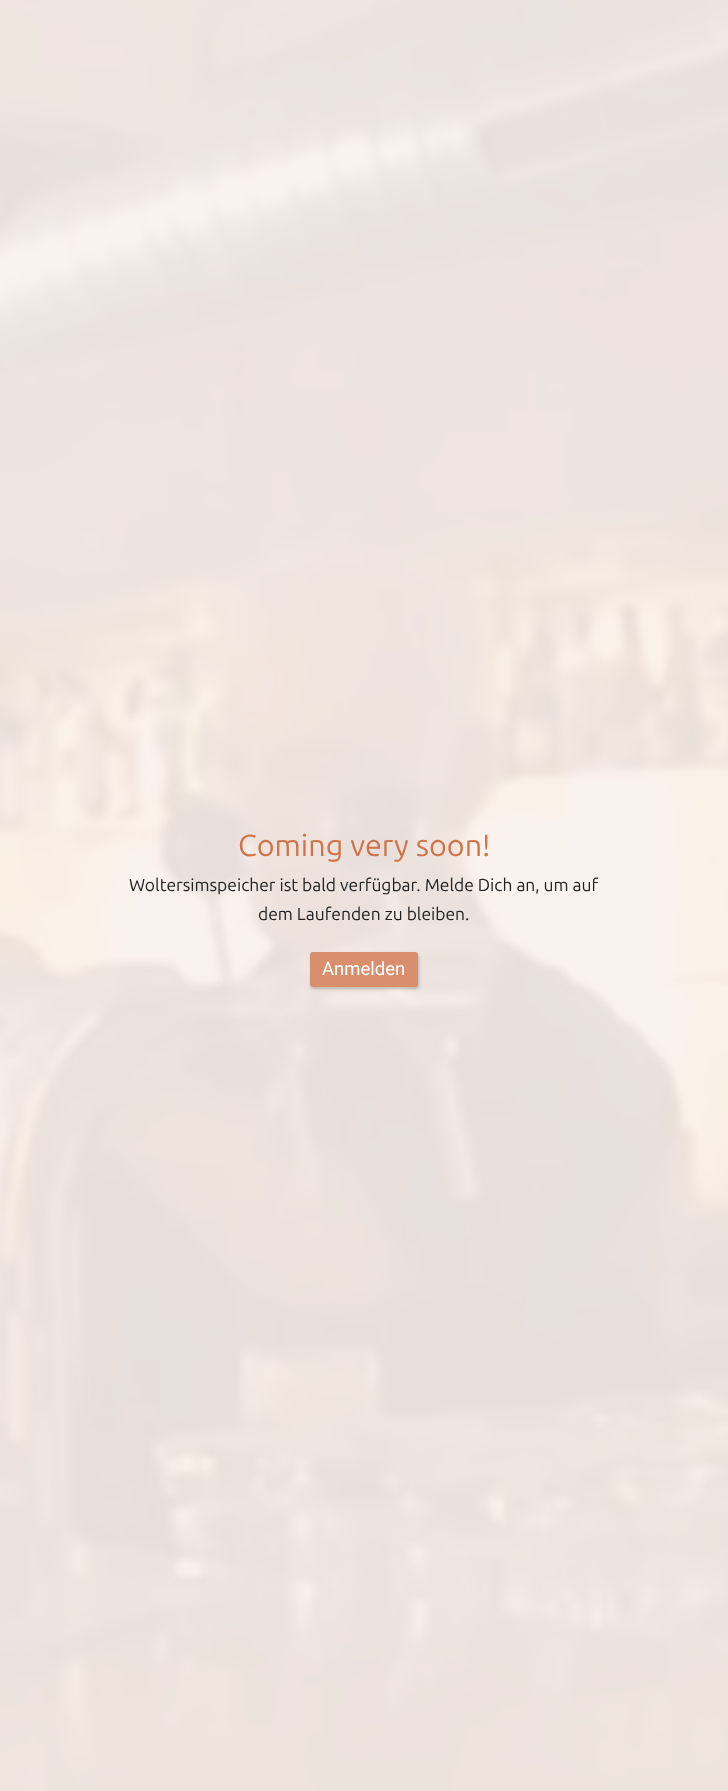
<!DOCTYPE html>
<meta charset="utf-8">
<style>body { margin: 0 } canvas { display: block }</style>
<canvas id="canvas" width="728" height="1791"></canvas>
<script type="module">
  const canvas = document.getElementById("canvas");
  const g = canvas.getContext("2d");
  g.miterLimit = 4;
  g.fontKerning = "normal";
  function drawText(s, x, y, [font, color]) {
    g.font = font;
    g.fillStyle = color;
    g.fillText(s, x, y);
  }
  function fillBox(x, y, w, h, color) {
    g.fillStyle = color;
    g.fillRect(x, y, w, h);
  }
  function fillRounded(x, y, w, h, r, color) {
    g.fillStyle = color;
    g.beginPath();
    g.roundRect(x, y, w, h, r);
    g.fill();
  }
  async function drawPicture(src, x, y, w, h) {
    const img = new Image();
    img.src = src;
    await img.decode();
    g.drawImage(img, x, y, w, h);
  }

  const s1 = ["30.5px Ubuntu", "#D07348"];
  const s2 = ["17.45px Ubuntu", "#222222"];
  const s3 = ["18.5px Roboto", "#FFFFFF"];

  fillBox(0, 0, 728, 1791, "#FFFFFF");
  await drawPicture("pic1.png", 0, 0, 728, 1791);
  drawText("Coming very soon!", 238, 856, s1);
  drawText("Woltersimspeicher ist bald verfügbar. Melde Dich an, um auf", 129, 891, s2);
  drawText("dem Laufenden zu bleiben.", 258, 920, s2);
  g.fillStyle = "rgba(0, 0, 0, 0.2)";
  g.filter = "blur(1.5px)";
  g.beginPath();
  g.roundRect(311, 954, 108, 35, 3);
  g.fill();
  g.filter = "none";
  fillRounded(310, 952, 108, 35, 3, "#D98F6D");
  drawText("Anmelden", 322, 975, s3);
</script>
